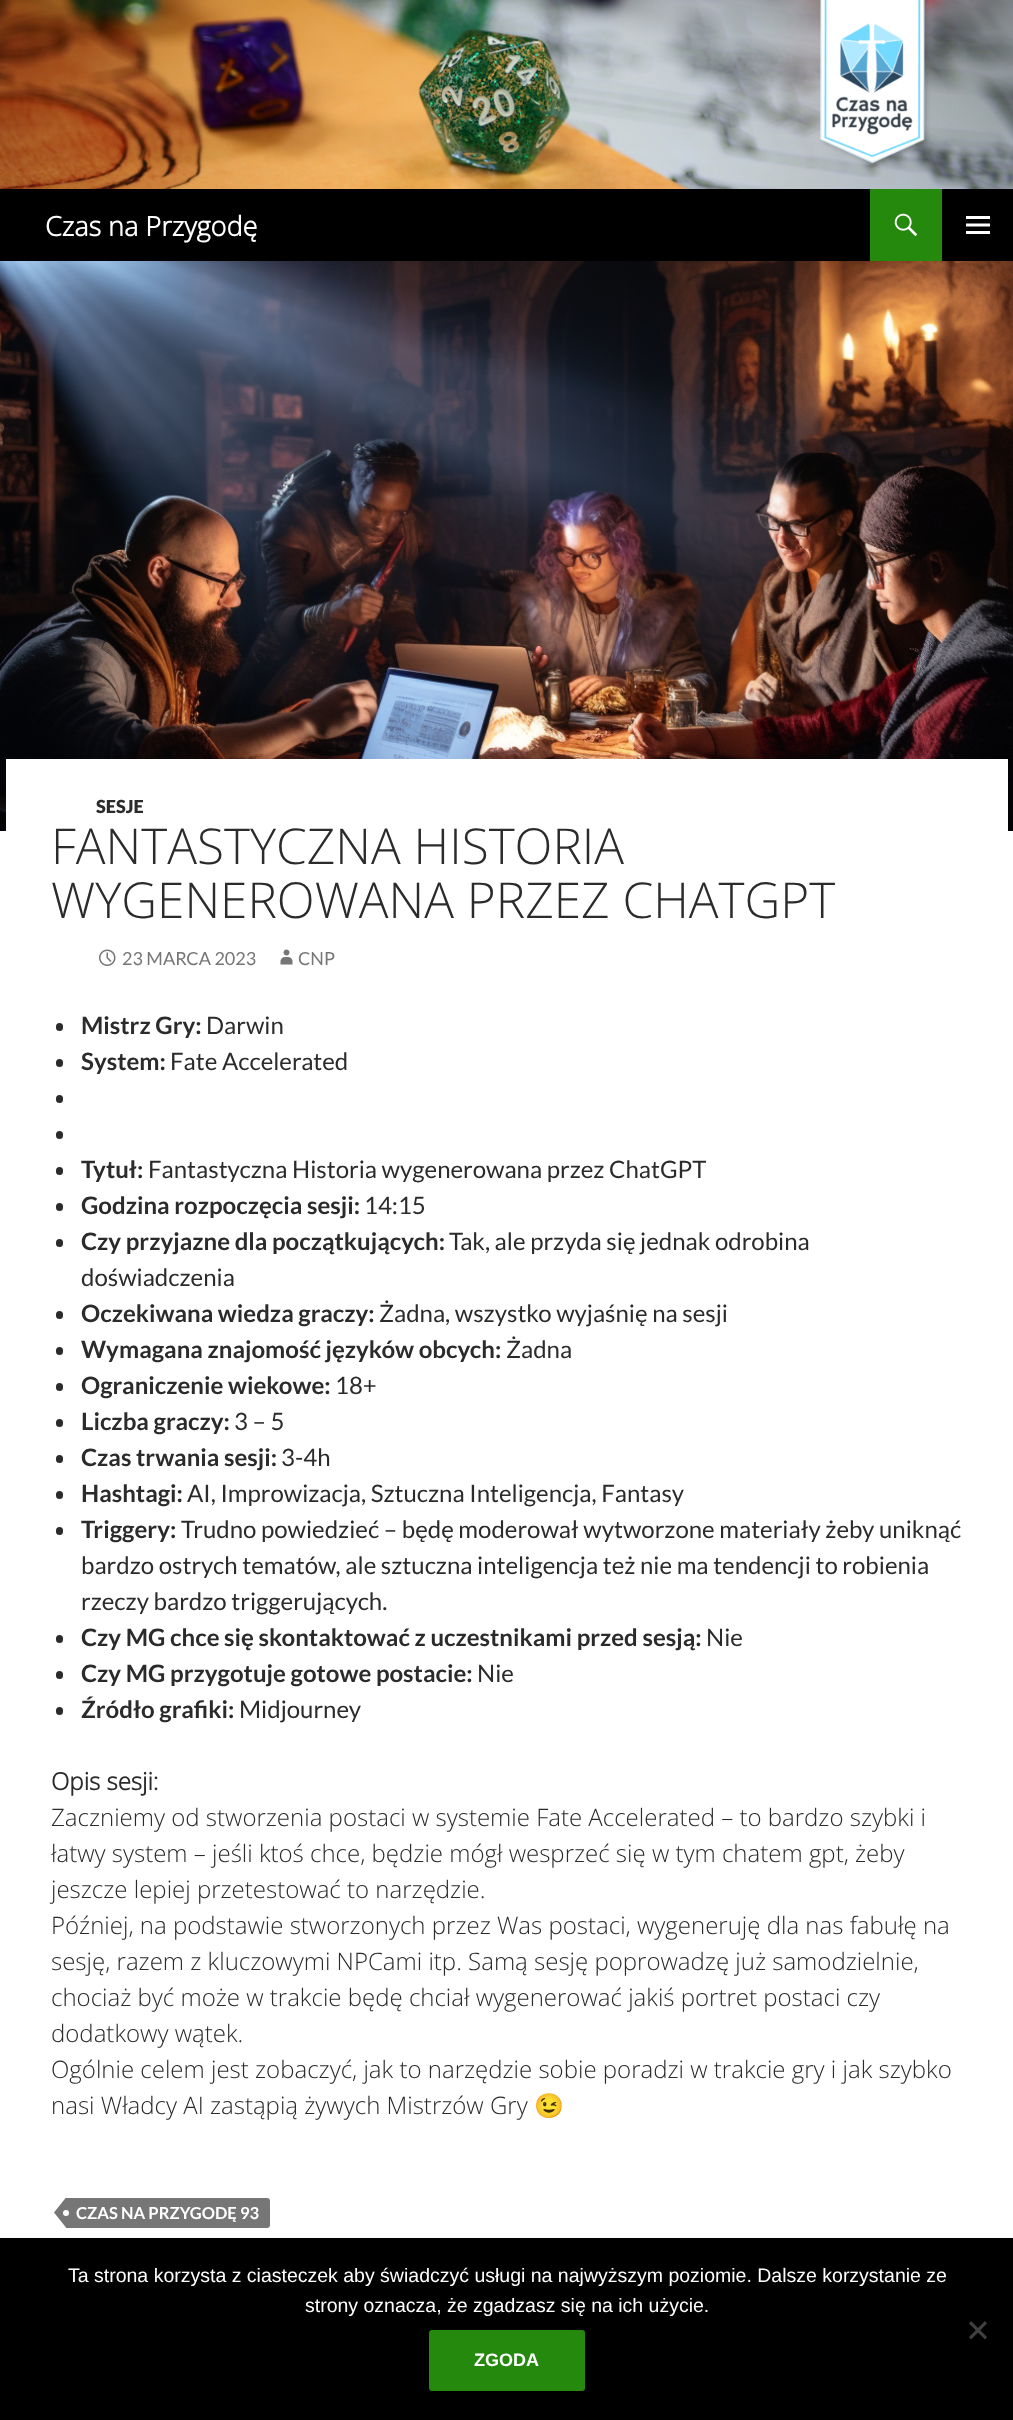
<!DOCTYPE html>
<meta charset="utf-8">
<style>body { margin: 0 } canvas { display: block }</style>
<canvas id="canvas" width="1013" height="2420"></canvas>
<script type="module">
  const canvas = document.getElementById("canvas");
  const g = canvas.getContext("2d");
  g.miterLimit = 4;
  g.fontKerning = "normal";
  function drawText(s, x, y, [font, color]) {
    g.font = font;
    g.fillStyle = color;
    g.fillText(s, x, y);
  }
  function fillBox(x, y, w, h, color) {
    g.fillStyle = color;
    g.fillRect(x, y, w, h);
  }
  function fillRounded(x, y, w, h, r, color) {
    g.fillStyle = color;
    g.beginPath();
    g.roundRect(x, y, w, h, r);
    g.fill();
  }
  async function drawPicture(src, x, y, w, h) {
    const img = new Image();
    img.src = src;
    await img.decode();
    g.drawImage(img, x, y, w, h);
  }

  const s1 = ["bold 27px Open Sans", "#FFFFFF"];
  const s2 = ["900 18px Lato", "#2B2B2B"];
  const s3 = ["300 49.5px Open Sans", "#2B2B2B"];
  const s4 = ["18px Lato", "#767676"];
  const s5 = ["bold 24px Lato", "#2B2B2B"];
  const s6 = ["24px Lato", "#2B2B2B"];
  const s7 = ["bold 24px Open Sans", "#2B2B2B"];
  const s8 = ["300 24px Open Sans", "#2B2B2B"];
  const s9 = ["24px Noto Color Emoji", "#2B2B2B"];
  const s10 = ["bold 16.5px Lato", "#FFFFFF"];
  const s11 = ["19.5px Liberation Sans", "#FFFFFF"];
  const s12 = ["bold 18px Liberation Sans", "#FFFFFF"];

  fillBox(0, 0, 1013, 2420, "#FFFFFF");
  await drawPicture("pic1.png", 0, 0, 1013, 189);
  fillBox(0, 189, 1013, 72, "#000000");
  drawText("Czas na Przygodę", 45, 236, s1);
  fillBox(870, 189, 72, 72, "#24890D");
  await drawPicture("pic2.png", 894, 213, 24, 24);
  await drawPicture("pic3.png", 966, 216, 24, 18);
  await drawPicture("pic4.png", 0, 261, 1013, 570);
  fillBox(6, 759, 1002, 72, "#FFFFFF");
  drawText("SESJE", 96, 813, s2);
  drawText("FANTASTYCZNA HISTORIA", 51, 864, s3);
  drawText("WYGENEROWANA PRZEZ CHATGPT", 51, 918, s3);
  await drawPicture("pic5.png", 99, 949, 17, 17);
  drawText("23 MARCA 2023", 122, 965, s4);
  await drawPicture("pic6.png", 280, 949, 13, 16);
  drawText("CNP", 298, 965, s4);
  fillRounded(56, 1023, 7, 8, 3.5, "#2B2B2B");
  drawText("Mistrz Gry:", 81, 1034, s5);
  drawText("Darwin", 206, 1034, s6);
  fillRounded(56, 1059, 7, 8, 3.5, "#2B2B2B");
  drawText("System:", 81, 1070, s5);
  drawText("Fate Accelerated", 170, 1070, s6);
  fillRounded(56, 1095, 7, 8, 3.5, "#2B2B2B");
  fillRounded(56, 1131, 7, 8, 3.5, "#2B2B2B");
  fillRounded(56, 1167, 7, 8, 3.5, "#2B2B2B");
  drawText("Tytuł:", 81, 1178, s5);
  drawText("Fantastyczna Historia wygenerowana przez ChatGPT", 148, 1178, s6);
  fillRounded(56, 1203, 7, 8, 3.5, "#2B2B2B");
  drawText("Godzina rozpoczęcia sesji:", 81, 1214, s5);
  drawText("14:15", 364, 1214, s6);
  fillRounded(56, 1239, 7, 8, 3.5, "#2B2B2B");
  drawText("Czy przyjazne dla początkujących:", 81, 1250, s5);
  drawText("Tak, ale przyda się jednak odrobina", 449, 1250, s6);
  drawText("doświadczenia", 81, 1286, s6);
  fillRounded(56, 1311, 7, 8, 3.5, "#2B2B2B");
  drawText("Oczekiwana wiedza graczy:", 81, 1322, s5);
  drawText("Żadna, wszystko wyjaśnię na sesji", 379, 1322, s6);
  fillRounded(56, 1347, 7, 8, 3.5, "#2B2B2B");
  drawText("Wymagana znajomość języków obcych:", 81, 1358, s5);
  drawText("Żadna", 506, 1358, s6);
  fillRounded(56, 1383, 7, 8, 3.5, "#2B2B2B");
  drawText("Ograniczenie wiekowe:", 81, 1394, s5);
  drawText("18+", 335, 1394, s6);
  fillRounded(56, 1419, 7, 8, 3.5, "#2B2B2B");
  drawText("Liczba graczy:", 81, 1430, s5);
  drawText("3 – 5", 234, 1430, s6);
  fillRounded(56, 1455, 7, 8, 3.5, "#2B2B2B");
  drawText("Czas trwania sesji:", 81, 1466, s5);
  drawText("3-4h", 281, 1466, s6);
  fillRounded(56, 1491, 7, 8, 3.5, "#2B2B2B");
  drawText("Hashtagi:", 81, 1502, s5);
  drawText("AI, Improwizacja, Sztuczna Inteligencja, Fantasy", 187, 1502, s6);
  fillRounded(56, 1527, 7, 8, 3.5, "#2B2B2B");
  drawText("Triggery:", 81, 1538, s5);
  drawText("Trudno powiedzieć – będę moderował wytworzone materiały żeby uniknąć", 181, 1538, s6);
  drawText("bardzo ostrych tematów, ale sztuczna inteligencja też nie ma tendencji to robienia", 81, 1574, s6);
  drawText("rzeczy bardzo triggerujących.", 81, 1610, s6);
  fillRounded(56, 1635, 7, 8, 3.5, "#2B2B2B");
  drawText("Czy MG chce się skontaktować z uczestnikami przed sesją:", 81, 1646, s5);
  drawText("Nie", 706, 1646, s6);
  fillRounded(56, 1671, 7, 8, 3.5, "#2B2B2B");
  drawText("Czy MG przygotuje gotowe postacie:", 81, 1682, s5);
  drawText("Nie", 477, 1682, s6);
  fillRounded(56, 1707, 7, 8, 3.5, "#2B2B2B");
  drawText("Źródło grafiki:", 81, 1718, s5);
  drawText("Midjourney", 239, 1718, s6);
  drawText("Opis sesji:", 51, 1790, s7);
  drawText("Zaczniemy od stworzenia postaci w systemie Fate Accelerated – to bardzo szybki i", 51, 1826, s8);
  drawText("łatwy system – jeśli ktoś chce, będzie mógł wesprzeć się w tym chatem gpt, żeby", 51, 1862, s8);
  drawText("jeszcze lepiej przetestować to narzędzie.", 51, 1898, s8);
  drawText("Później, na podstawie stworzonych przez Was postaci, wygeneruję dla nas fabułę na", 51, 1934, s8);
  drawText("sesję, razem z kluczowymi NPCami itp. Samą sesję poprowadzę już samodzielnie,", 51, 1970, s8);
  drawText("chociaż być może w trakcie będę chciał wygenerować jakiś portret postaci czy", 51, 2006, s8);
  drawText("dodatkowy wątek.", 51, 2042, s8);
  drawText("Ogólnie celem jest zobaczyć, jak to narzędzie sobie poradzi w trakcie gry i jak szybko", 51, 2078, s8);
  drawText("nasi Władcy AI zastąpią żywych Mistrzów Gry", 51, 2114, s8);
  drawText("😉", 534, 2114, s9);
  g.fillStyle = "#767676";
  g.beginPath();
  g.roundRect(66, 2198, 204, 30, [0, 3, 3, 0]);
  g.fill();
  g.beginPath();
  g.moveTo(66, 2197.5);
  g.lineTo(66, 2227.5);
  g.lineTo(54, 2212.5);
  g.closePath();
  g.fill();
  drawText("CZAS NA PRZYGODĘ 93", 76, 2219, s10);
  g.beginPath();
  g.arc(66, 2213, 3, 0, Math.PI * 2);
  g.fill();
  fillBox(0, 2238, 1013, 182, "#000000");
  drawText("Ta strona korzysta z ciasteczek aby świadczyć usługi na najwyższym poziomie. Dalsze korzystanie ze", 68, 2282, s11);
  drawText("strony oznacza, że zgadzasz się na ich użycie.", 305, 2312, s11);
  g.fillStyle = "#404040";
  g.beginPath();
  g.moveTo(985, 2321);
  g.lineTo(987, 2323.5);
  g.lineTo(971, 2339.5);
  g.lineTo(969, 2337);
  g.closePath();
  g.fill();
  g.beginPath();
  g.moveTo(969, 2323.5);
  g.lineTo(971, 2321);
  g.lineTo(987, 2337);
  g.lineTo(985, 2339.5);
  g.closePath();
  g.fill();
  fillRounded(429, 2330, 156, 61, 3, "#24890D");
  drawText("ZGODA", 474, 2366, s12);
</script>
